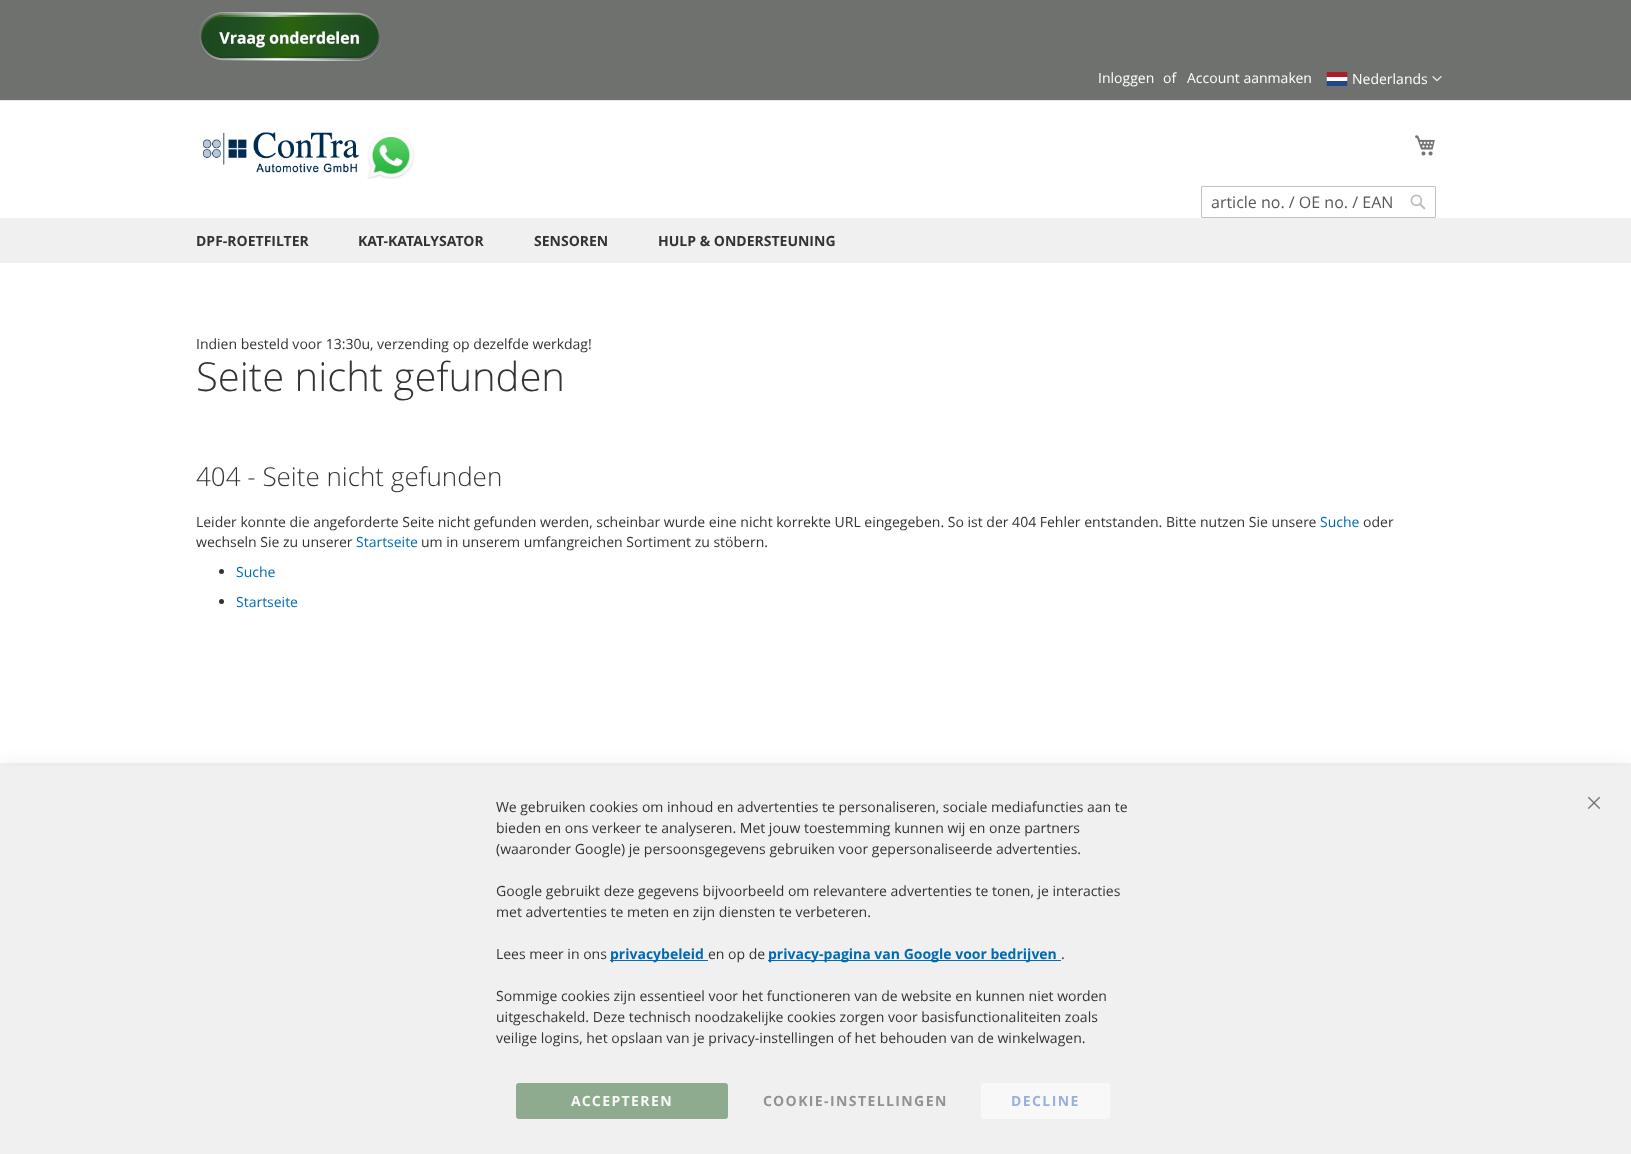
<!DOCTYPE html>
<meta charset="utf-8">
<style>body { margin: 0 } canvas { display: block }</style>
<canvas id="canvas" width="1631" height="1154"></canvas>
<script type="module">
  const canvas = document.getElementById("canvas");
  const g = canvas.getContext("2d");
  g.miterLimit = 4;
  g.fontKerning = "normal";
  function drawText(s, x, y, [font, color]) {
    g.font = font;
    g.fillStyle = color;
    g.fillText(s, x, y);
  }
  function fillBox(x, y, w, h, color) {
    g.fillStyle = color;
    g.fillRect(x, y, w, h);
  }
  function fillRounded(x, y, w, h, r, color) {
    g.fillStyle = color;
    g.beginPath();
    g.roundRect(x, y, w, h, r);
    g.fill();
  }
  async function drawPicture(src, x, y, w, h) {
    const img = new Image();
    img.src = src;
    await img.decode();
    g.drawImage(img, x, y, w, h);
  }

  const s1 = ["14px Open Sans", "#FFFFFF"];
  const s2 = ["16px Open Sans", "#575757"];
  const s3 = ["bold 14px Open Sans", "#333333"];
  const s4 = ["14px Open Sans", "#333333"];
  const s5 = ["300 40px Open Sans", "#333333"];
  const s6 = ["300 26px Open Sans", "#333333"];
  const s7 = ["14px Open Sans", "#006BB4"];
  const s8 = ["bold 14px Open Sans", "#006BB4"];
  const s9 = ["bold 14px Open Sans", "#F8F8F8"];
  const s10 = ["bold 14px Open Sans", "#929292"];
  const s11 = ["bold 14px Open Sans", "#9BB0DD"];

  fillBox(0, 0, 1631, 1154, "#FFFFFF");
  fillBox(0, 0, 1631, 100, "#6E716E");
  fillBox(0, 100, 1631, 1, "#E8E8E8");
  await drawPicture("pic1.png", 199, 12, 182, 49);
  drawText("Inloggen", 1098, 83, s1);
  drawText("of", 1163, 83, s1);
  drawText("Account aanmaken", 1187, 83, s1);
  await drawPicture("pic2.png", 1326, 72, 22, 14);
  drawText("Nederlands", 1352, 84, s1);
  await drawPicture("pic3.png", 1432, 76, 10, 6);
  await drawPicture("pic4.png", 203, 132, 156, 41);
  await drawPicture("pic5.png", 367, 132, 48, 47);
  await drawPicture("pic6.png", 1415, 135, 20, 21);
  g.beginPath();
  g.roundRect(1201.5, 186.5, 234, 31, 0.5);
  g.strokeStyle = "#C2C2C2";
  g.stroke();
  drawText("article no. / OE no. / EAN", 1211, 208, s2);
  await drawPicture("pic7.png", 1410, 194, 16, 16);
  fillBox(0, 218, 1631, 45, "#F0F0F0");
  drawText("DPF-ROETFILTER", 196, 246, s3);
  drawText("KAT-KATALYSATOR", 358, 246, s3);
  drawText("SENSOREN", 534, 246, s3);
  drawText("HULP & ONDERSTEUNING", 658, 246, s3);
  drawText("Indien besteld voor 13:30u, verzending op dezelfde werkdag!", 196, 349, s4);
  drawText("Seite nicht gefunden", 196, 391, s5);
  drawText("404 - Seite nicht gefunden", 196, 486, s6);
  drawText("Leider konnte die angeforderte Seite nicht gefunden werden, scheinbar wurde eine nicht korrekte URL eingegeben. So ist der 404 Fehler entstanden. Bitte nutzen Sie unsere", 196, 527, s4);
  drawText("Suche", 1320, 527, s7);
  drawText("oder", 1363, 527, s4);
  drawText("wechseln Sie zu unserer", 196, 547, s4);
  drawText("Startseite", 356, 547, s7);
  drawText("um in unserem umfangreichen Sortiment zu stöbern.", 421, 547, s4);
  g.beginPath();
  g.arc(221.5, 571.5, 2.5, 0, Math.PI * 2);
  g.fill();
  drawText("Suche", 236, 577, s7);
  g.fillStyle = "#333333";
  g.beginPath();
  g.arc(221.5, 601.5, 2.5, 0, Math.PI * 2);
  g.fill();
  drawText("Startseite", 236, 607, s7);
  fillBox(0, 763, 1631, 3, "#F4F4F4");
  g.fillStyle = "rgba(0, 0, 0, 0.06)";
  g.filter = "blur(9px)";
  g.beginPath();
  g.rect(0, 764, 1631, 388);
  g.fill();
  g.filter = "none";
  fillBox(0, 766, 1631, 388, "#F0F0F0");
  drawText("We gebruiken cookies om inhoud en advertenties te personaliseren, sociale mediafuncties aan te", 496, 812, s4);
  drawText("bieden en ons verkeer te analyseren. Met jouw toestemming kunnen wij en onze partners", 496, 833, s4);
  drawText("(waaronder Google) je persoonsgegevens gebruiken voor gepersonaliseerde advertenties.", 496, 854, s4);
  drawText("Google gebruikt deze gegevens bijvoorbeeld om relevantere advertenties te tonen, je interacties", 496, 896, s4);
  drawText("met advertenties te meten en zijn diensten te verbeteren.", 496, 917, s4);
  drawText("Lees meer in ons", 496, 959, s4);
  fillBox(610, 960, 98, 1, "#006BB4");
  drawText("privacybeleid", 610, 959, s8);
  drawText("en op de", 708, 959, s4);
  fillBox(768, 960, 293, 1, "#006BB4");
  drawText("privacy-pagina van Google voor bedrijven", 768, 959, s8);
  drawText(".", 1061, 959, s4);
  drawText("Sommige cookies zijn essentieel voor het functioneren van de website en kunnen niet worden", 496, 1001, s4);
  drawText("uitgeschakeld. Deze technisch noodzakelijke cookies zorgen voor basisfunctionaliteiten zoals", 496, 1022, s4);
  drawText("veilige logins, het opslaan van je privacy-instellingen of het behouden van de winkelwagen.", 496, 1043, s4);
  fillRounded(516, 1083, 212, 36, 3, "#8EAA8F");
  g.letterSpacing = "1.4px";
  drawText("ACCEPTEREN", 571, 1106, s9);
  drawText("COOKIE-INSTELLINGEN", 763, 1106, s10);
  fillRounded(981, 1083, 129, 36, 3, "#F8F8F8");
  drawText("DECLINE", 1011, 1106, s11);
  await drawPicture("pic8.png", 1587, 796, 14, 13);
</script>
